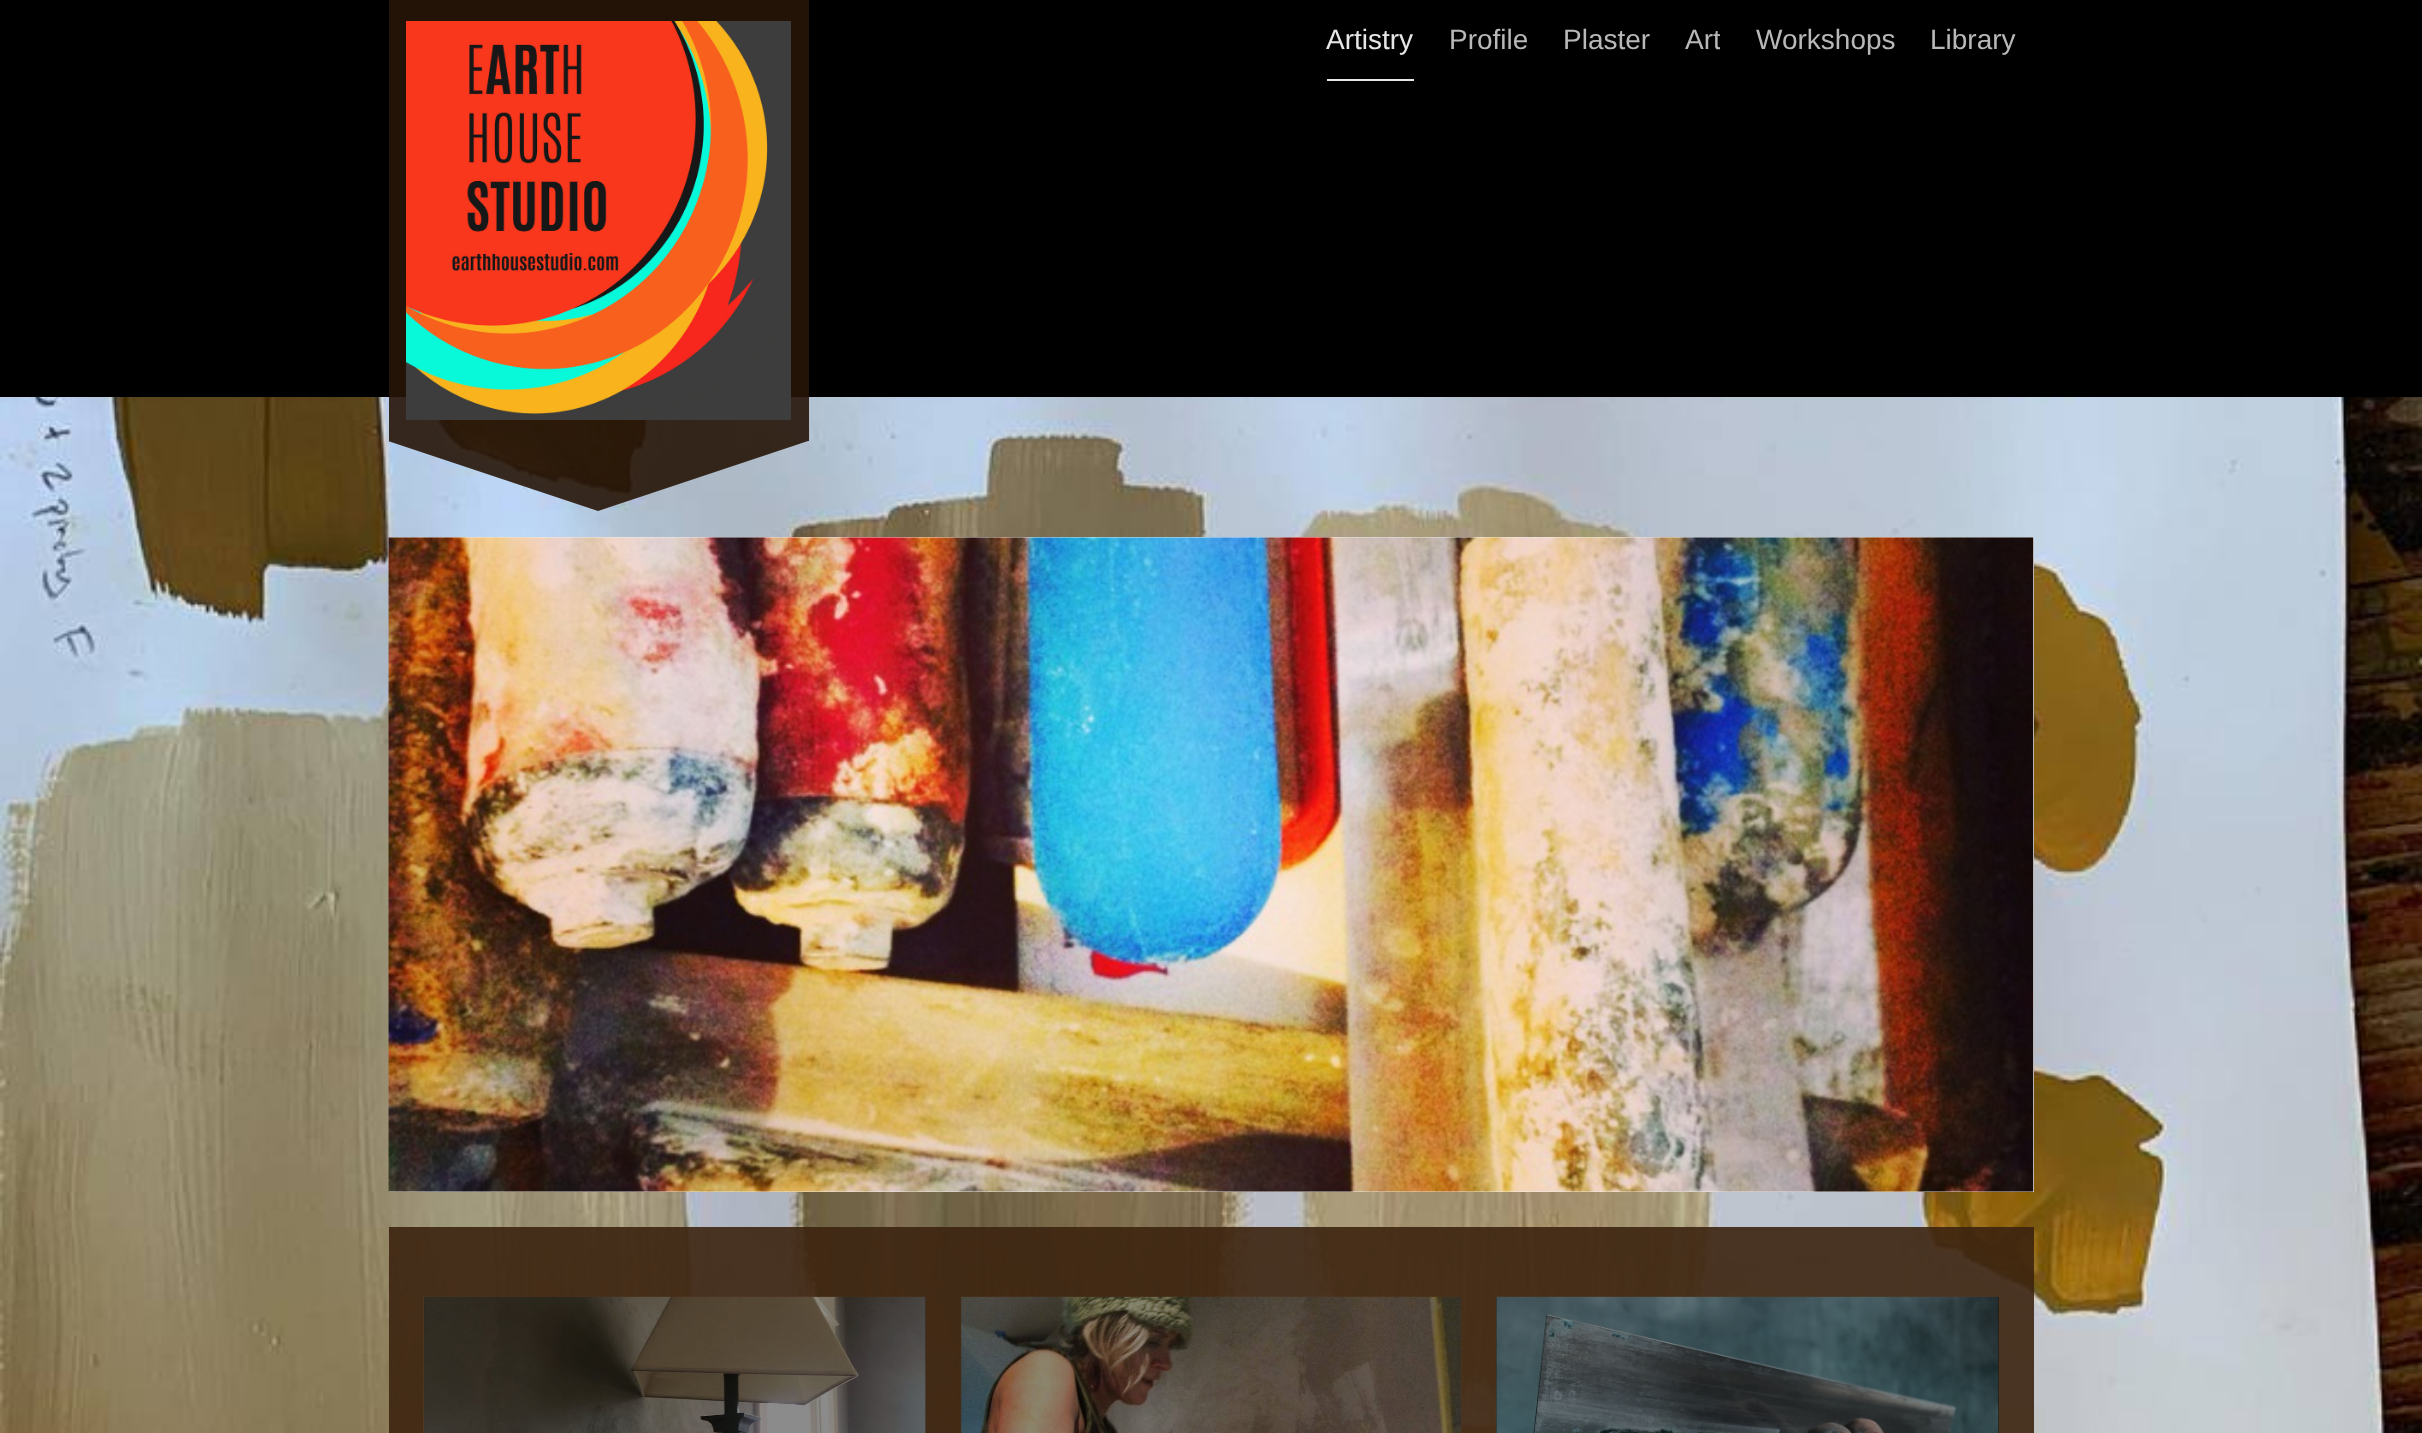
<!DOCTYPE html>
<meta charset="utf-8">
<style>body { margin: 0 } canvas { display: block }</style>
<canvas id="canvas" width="2422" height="1433"></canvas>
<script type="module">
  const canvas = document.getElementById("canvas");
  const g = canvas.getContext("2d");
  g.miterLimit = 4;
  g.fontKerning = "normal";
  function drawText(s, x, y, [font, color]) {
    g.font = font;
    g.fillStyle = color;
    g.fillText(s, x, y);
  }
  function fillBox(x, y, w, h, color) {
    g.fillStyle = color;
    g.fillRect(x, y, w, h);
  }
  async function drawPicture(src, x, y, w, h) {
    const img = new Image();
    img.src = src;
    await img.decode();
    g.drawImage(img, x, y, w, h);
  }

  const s1 = ["28px Liberation Sans", "#E6E6E6"];
  const s2 = ["28px Liberation Sans", "#B8B8B8"];

  fillBox(0, 0, 2422, 1433, "#FFFFFF");
  await drawPicture("pic1.png", 0, 397, 2422, 1036);
  fillBox(0, 0, 2422, 397, "#000000");
  fillBox(389, 0, 420, 441, "rgba(39, 21, 8, 0.9)");
  await drawPicture("pic2.png", 406, 21, 385, 399);
  g.beginPath();
  g.moveTo(388, 441);
  g.lineTo(808, 441);
  g.lineTo(598, 511);
  g.closePath();
  g.fill();
  fillBox(1327, 79, 87, 2, "#E6E6E6");
  drawText("Artistry", 1326, 49, s1);
  drawText("Profile", 1449, 49, s2);
  drawText("Plaster", 1563, 49, s2);
  g.save();
  g.beginPath();
  g.rect(1685, 0, 35, 81);
  g.clip();
  drawText("Art", 1685, 49, s2);
  g.restore();
  drawText("Workshops", 1756, 49, s2);
  drawText("Library", 1930, 49, s2);
  await drawPicture("pic3.png", 388, 537, 1, 655);
  fillBox(389, 537, 1645, 655, "#EEEEEE");
  await drawPicture("pic4.png", 388, 537, 1646, 655);
  fillBox(389, 1227, 1645, 206, "rgba(60, 35, 15, 0.9)");
  await drawPicture("pic5.png", 423, 1296, 503, 137);
  fillBox(424, 1297, 502, 136, "rgba(0, 0, 0, 0.45)");
  await drawPicture("pic6.png", 960, 1296, 502, 137);
  await drawPicture("pic7.png", 1496, 1296, 503, 137);
  fillBox(1496, 1297, 503, 136, "rgba(0, 0, 0, 0.45)");
</script>
